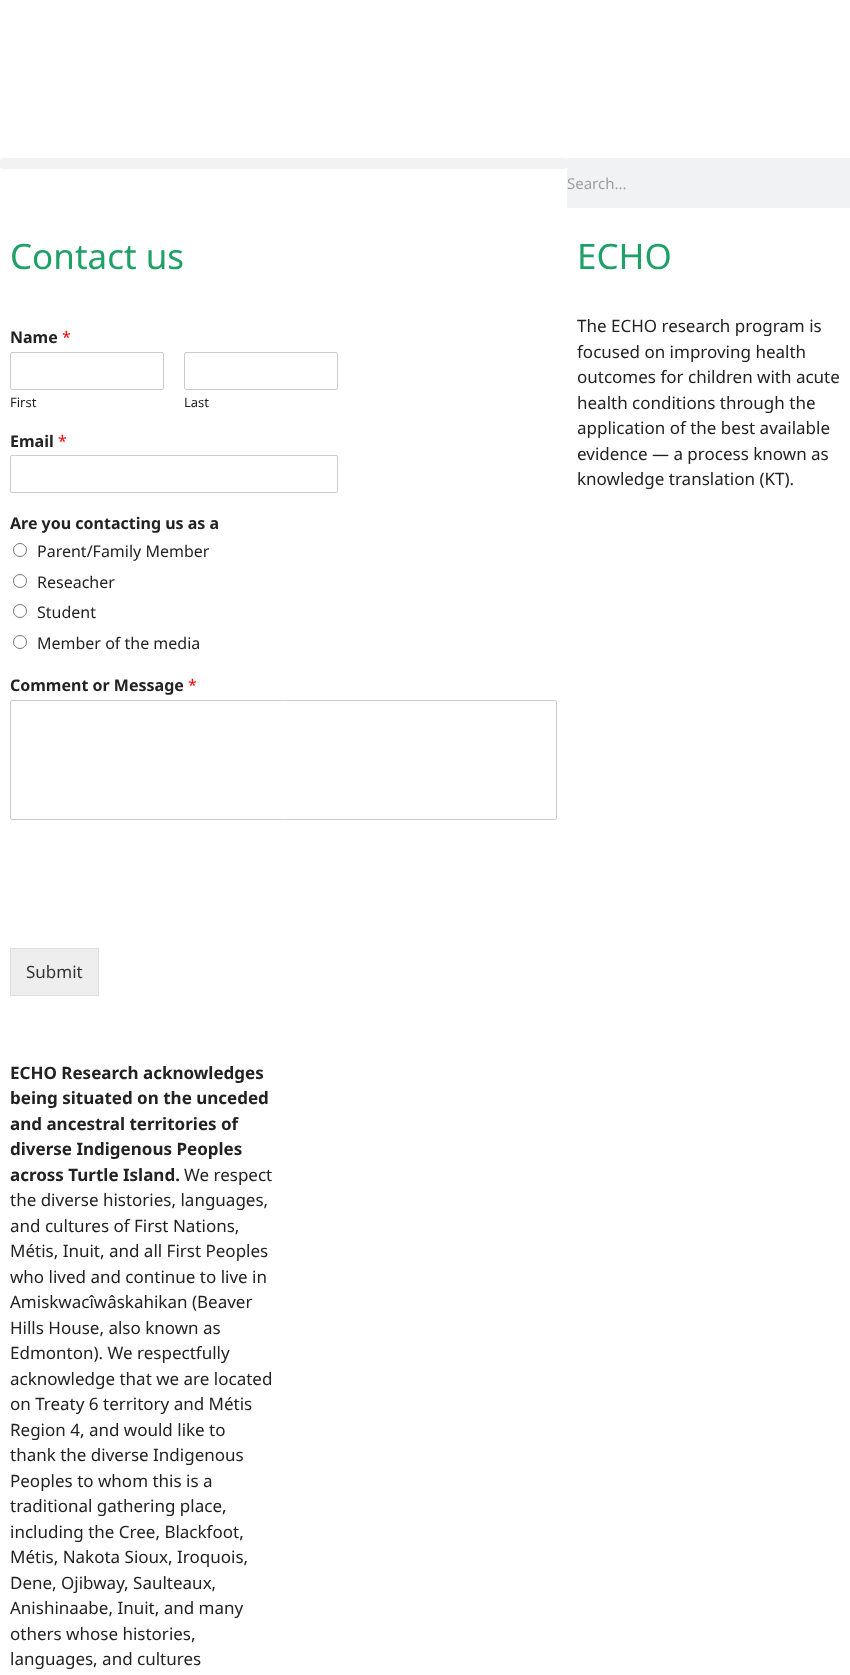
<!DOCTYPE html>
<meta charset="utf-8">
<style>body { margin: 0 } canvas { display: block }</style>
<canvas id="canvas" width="850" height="1675"></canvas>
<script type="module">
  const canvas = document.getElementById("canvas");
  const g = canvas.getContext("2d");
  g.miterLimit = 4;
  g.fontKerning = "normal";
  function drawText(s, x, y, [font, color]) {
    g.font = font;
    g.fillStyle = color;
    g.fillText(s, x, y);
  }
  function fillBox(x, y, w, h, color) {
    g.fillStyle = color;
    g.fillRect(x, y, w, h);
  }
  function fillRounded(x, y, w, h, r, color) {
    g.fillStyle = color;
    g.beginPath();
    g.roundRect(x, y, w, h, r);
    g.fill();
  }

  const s1 = ["15px Noto Sans", "#9E9E9E"];
  const s2 = ["35px Noto Sans", "#1FA067"];
  const s3 = ["bold 16px Noto Sans", "#222222"];
  const s4 = ["16px Noto Sans", "#FF0000"];
  const s5 = ["13px Noto Sans", "#222222"];
  const s6 = ["16px Noto Sans", "#222222"];
  const s7 = ["17px Noto Sans", "#333333"];
  const s8 = ["17px Noto Sans", "#222222"];
  const s9 = ["bold 17px Noto Sans", "#222222"];

  fillBox(0, 0, 850, 1675, "#FFFFFF");
  fillRounded(0, 158, 567, 11, 3, "#F2F2F2");
  fillBox(567, 158, 283, 50, "#F1F2F3");
  drawText("Search...", 567, 189, s1);
  drawText("Contact us", 10, 269, s2);
  drawText("Name", 10, 343, s3);
  drawText("*", 62, 343, s4);
  g.beginPath();
  g.roundRect(10.5, 352.5, 153, 37, 1.5);
  g.strokeStyle = "#CCCCCC";
  g.stroke();
  drawText("First", 10, 407, s5);
  g.beginPath();
  g.roundRect(184.5, 352.5, 153, 37, 1.5);
  g.stroke();
  drawText("Last", 184, 407, s5);
  drawText("Email", 10, 447, s3);
  drawText("*", 58, 447, s4);
  g.beginPath();
  g.roundRect(10.5, 455.5, 327, 37, 1.5);
  g.stroke();
  drawText("Are you contacting us as a", 10, 529, s3);
  g.beginPath();
  g.arc(20, 550, 6.5, 0, Math.PI * 2);
  g.strokeStyle = "#767676";
  g.stroke();
  drawText("Parent/Family Member", 37, 557, s6);
  g.beginPath();
  g.arc(20, 581, 6.5, 0, Math.PI * 2);
  g.stroke();
  drawText("Reseacher", 37, 588, s6);
  g.beginPath();
  g.arc(20, 611, 6.5, 0, Math.PI * 2);
  g.stroke();
  drawText("Student", 37, 618, s6);
  g.beginPath();
  g.arc(20, 642, 6.5, 0, Math.PI * 2);
  g.stroke();
  drawText("Member of the media", 37, 649, s6);
  drawText("Comment or Message", 10, 691, s3);
  drawText("*", 188, 691, s4);
  g.beginPath();
  g.roundRect(10.5, 700.5, 546, 119, 1.5);
  g.strokeStyle = "#CCCCCC";
  g.stroke();
  g.fillStyle = "#EEEEEE";
  g.beginPath();
  g.rect(10.5, 948.5, 88, 47);
  g.fill();
  g.strokeStyle = "#DDDDDD";
  g.stroke();
  drawText("Submit", 26, 978, s7);
  drawText("ECHO", 577, 269, s2);
  drawText("The ECHO research program is", 577, 332, s8);
  drawText("focused on improving health", 577, 358, s8);
  drawText("outcomes for children with acute", 577, 383, s8);
  drawText("health conditions through the", 577, 409, s8);
  drawText("application of the best available", 577, 434, s8);
  drawText("evidence — a process known as", 577, 460, s8);
  drawText("knowledge translation (KT).", 577, 485, s8);
  drawText("ECHO Research acknowledges", 10, 1079, s9);
  drawText("being situated on the unceded", 10, 1104, s9);
  drawText("and ancestral territories of", 10, 1130, s9);
  drawText("diverse Indigenous Peoples", 10, 1155, s9);
  drawText("across Turtle Island.", 10, 1181, s9);
  drawText("We respect", 184, 1181, s8);
  drawText("the diverse histories, languages,", 10, 1206, s8);
  drawText("and cultures of First Nations,", 10, 1232, s8);
  drawText("Métis, Inuit, and all First Peoples", 10, 1257, s8);
  drawText("who lived and continue to live in", 10, 1283, s8);
  drawText("Amiskwacîwâskahikan (Beaver", 10, 1308, s8);
  drawText("Hills House, also known as", 10, 1334, s8);
  drawText("Edmonton). We respectfully", 10, 1359, s8);
  drawText("acknowledge that we are located", 10, 1385, s8);
  drawText("on Treaty 6 territory and Métis", 10, 1410, s8);
  drawText("Region 4, and would like to", 10, 1436, s8);
  drawText("thank the diverse Indigenous", 10, 1461, s8);
  drawText("Peoples to whom this is a", 10, 1487, s8);
  drawText("traditional gathering place,", 10, 1512, s8);
  drawText("including the Cree, Blackfoot,", 10, 1538, s8);
  drawText("Métis, Nakota Sioux, Iroquois,", 10, 1563, s8);
  drawText("Dene, Ojibway, Saulteaux,", 10, 1589, s8);
  drawText("Anishinaabe, Inuit, and many", 10, 1614, s8);
  drawText("others whose histories,", 10, 1640, s8);
  drawText("languages, and cultures", 10, 1665, s8);
</script>
